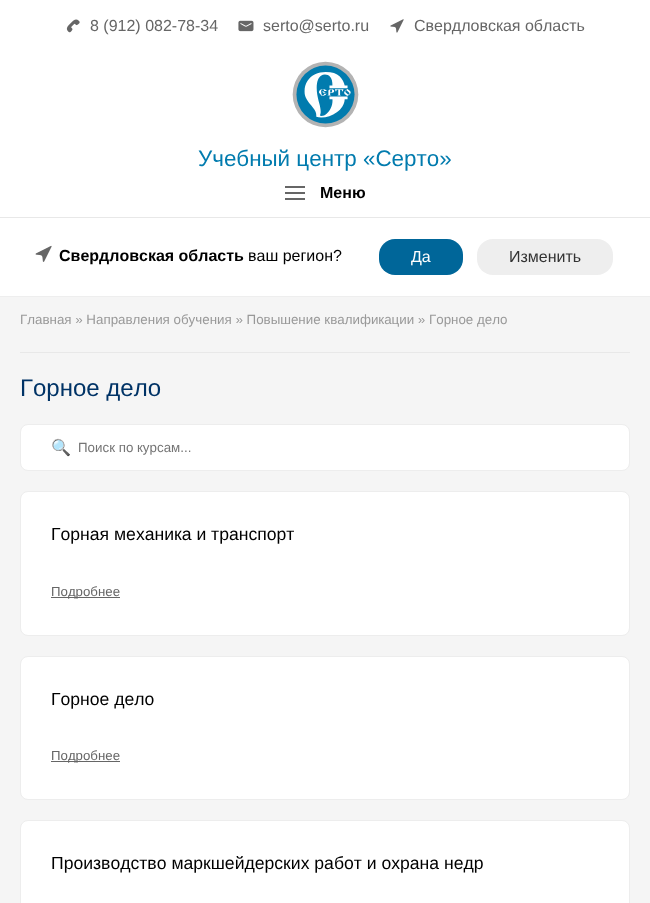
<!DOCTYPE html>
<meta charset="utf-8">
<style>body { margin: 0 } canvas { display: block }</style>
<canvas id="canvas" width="650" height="903"></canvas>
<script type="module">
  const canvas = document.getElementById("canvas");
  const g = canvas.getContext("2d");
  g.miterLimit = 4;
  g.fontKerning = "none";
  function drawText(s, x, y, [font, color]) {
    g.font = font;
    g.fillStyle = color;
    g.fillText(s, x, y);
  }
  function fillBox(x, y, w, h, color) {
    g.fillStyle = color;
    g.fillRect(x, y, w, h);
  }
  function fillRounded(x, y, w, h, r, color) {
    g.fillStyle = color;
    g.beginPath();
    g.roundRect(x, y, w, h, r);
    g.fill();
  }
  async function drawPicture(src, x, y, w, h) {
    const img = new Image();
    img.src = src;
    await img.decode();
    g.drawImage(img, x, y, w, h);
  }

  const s1 = ["16px Liberation Sans", "#666666"];
  const s2 = ["22.4px Liberation Sans", "#017BAE"];
  const s3 = ["bold 16px Liberation Sans", "#000000"];
  const s4 = ["16px Liberation Sans", "#000000"];
  const s5 = ["16px Liberation Sans", "#FFFFFF"];
  const s6 = ["16px Liberation Sans", "#333333"];
  const s7 = ["13.35px Liberation Sans", "#999999"];
  const s8 = ["24px Liberation Sans", "#003366"];
  const s9 = ["16px Noto Color Emoji", "#333333"];
  const s10 = ["13.35px Liberation Sans", "#757575"];
  const s11 = ["17.6px Liberation Sans", "#000000"];
  const s12 = ["13.25px Liberation Sans", "#666666"];

  fillBox(0, 0, 650, 903, "#F5F5F5");
  fillBox(0, 0, 650, 217, "#FFFFFF");
  fillBox(0, 217, 650, 1, "#E8E8E8");
  await drawPicture("pic1.png", 66, 19, 14, 14);
  drawText("8 (912) 082-78-34", 90, 31, s1);
  await drawPicture("pic2.png", 238, 20, 16, 12);
  drawText("serto@serto.ru", 263, 31, s1);
  await drawPicture("pic3.png", 390, 19, 14, 14);
  drawText("Свердловская область", 414, 31, s1);
  await drawPicture("pic4.png", 292, 61, 67, 67);
  drawText("Учебный центр «Серто»", 198, 166, s2);
  fillBox(285, 186, 20, 2, "#666666");
  fillBox(285, 192, 20, 2, "#666666");
  fillBox(285, 198, 20, 2, "#666666");
  drawText("Меню", 320, 198, s3);
  fillBox(0, 218, 650, 78, "#FFFFFF");
  fillBox(0, 296, 650, 1, "#EEEEEE");
  await drawPicture("pic5.png", 35, 245, 17, 17);
  drawText("Свердловская область", 59, 261, s3);
  drawText("ваш регион?", 248, 261, s4);
  fillRounded(379, 239, 84, 36, 16, "#006699");
  drawText("Да", 411, 262, s5);
  fillRounded(477, 239, 136, 36, 16, "#EEEEEE");
  drawText("Изменить", 509, 262, s6);
  fillBox(20, 352, 610, 1, "#E8E8E8");
  drawText("Главная » Направления обучения » Повышение квалификации » Горное дело", 20, 324, s7);
  drawText("Горное дело", 20, 396, s8);
  g.fillStyle = "#FFFFFF";
  g.beginPath();
  g.roundRect(20.5, 424.5, 609, 46, 7.5);
  g.fill();
  g.strokeStyle = "#EDEDED";
  g.stroke();
  drawText("🔍", 51, 453, s9);
  drawText("Поиск по курсам...", 78, 452, s10);
  g.fillStyle = "#FFFFFF";
  g.beginPath();
  g.roundRect(20.5, 491.5, 609, 144, 7.5);
  g.fill();
  g.stroke();
  drawText("Горная механика и транспорт", 51, 540, s11);
  fillBox(51, 597, 69, 1, "#666666");
  drawText("Подробнее", 51, 596, s12);
  g.fillStyle = "#FFFFFF";
  g.beginPath();
  g.roundRect(20.5, 656.5, 609, 143, 7.5);
  g.fill();
  g.stroke();
  drawText("Горное дело", 51, 705, s11);
  fillBox(51, 761, 69, 1, "#666666");
  drawText("Подробнее", 51, 760, s12);
  g.fillStyle = "#FFFFFF";
  g.beginPath();
  g.roundRect(20.5, 820.5, 609, 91, 7.5);
  g.fill();
  g.stroke();
  drawText("Производство маркшейдерских работ и охрана недр", 51, 869, s11);
</script>
